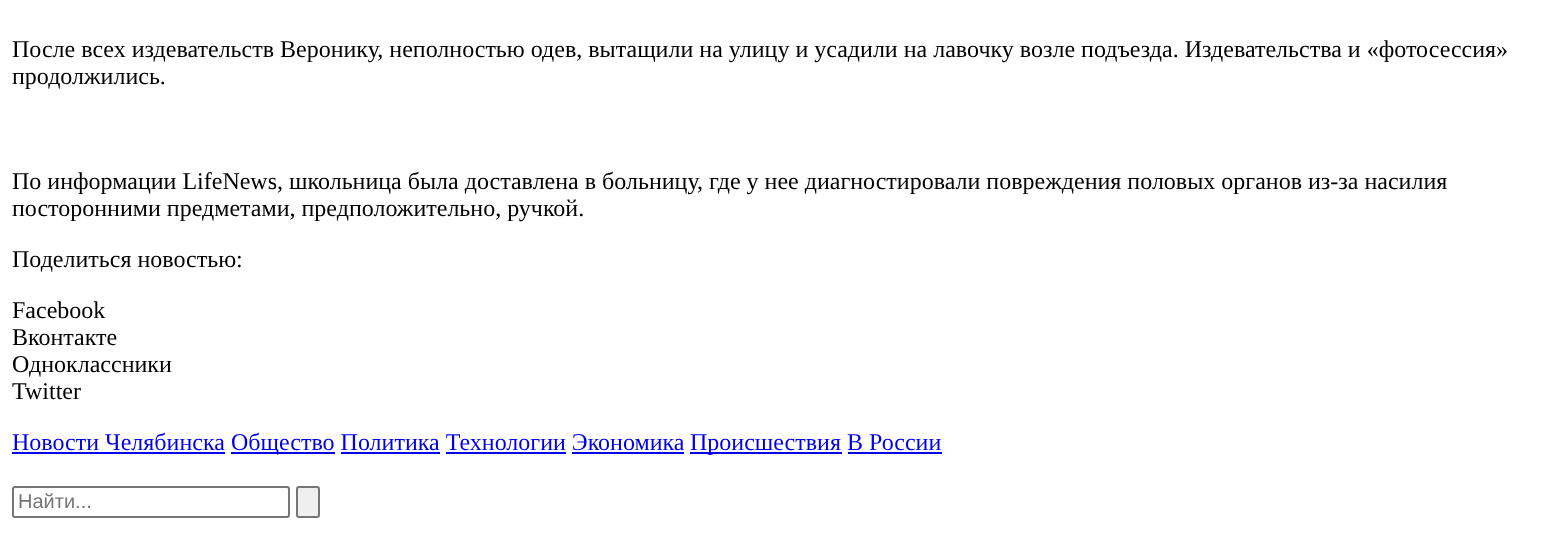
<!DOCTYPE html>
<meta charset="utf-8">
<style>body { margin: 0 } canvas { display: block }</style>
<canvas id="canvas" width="1546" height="559"></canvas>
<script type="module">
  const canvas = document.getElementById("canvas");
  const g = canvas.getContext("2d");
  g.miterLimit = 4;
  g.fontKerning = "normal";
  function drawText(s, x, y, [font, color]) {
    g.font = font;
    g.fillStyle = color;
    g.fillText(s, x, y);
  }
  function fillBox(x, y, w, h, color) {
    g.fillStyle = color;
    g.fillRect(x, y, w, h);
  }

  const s1 = ["24px Liberation Serif", "#000000"];
  const s2 = ["24px Liberation Serif", "#0000EE"];
  const s3 = ["20px Liberation Sans", "#757575"];

  fillBox(0, 0, 1546, 559, "#FFFFFF");
  drawText("После всех издевательств Веронику, неполностью одев, вытащили на улицу и усадили на лавочку возле подъезда. Издевательства и «фотосессия»", 12, 57, s1);
  drawText("продолжились.", 12, 84, s1);
  drawText("По информации LifeNews, школьница была доставлена в больницу, где у нее диагностировали повреждения половых органов из-за насилия", 12, 189, s1);
  drawText("посторонними предметами, предположительно, ручкой.", 12, 216, s1);
  drawText("Поделиться новостью:", 12, 267, s1);
  drawText("Facebook", 12, 318, s1);
  drawText("Вконтакте", 12, 345, s1);
  drawText("Одноклассники", 12, 372, s1);
  drawText("Twitter", 12, 399, s1);
  drawText("Новости Челябинска", 12, 450, s2);
  fillBox(12, 452, 213, 2, "#0000EE");
  fillBox(231, 452, 104, 2, "#0000EE");
  drawText("Общество Политика Технологии Экономика", 231, 450, s2);
  fillBox(690, 452, 152, 2, "#0000EE");
  drawText("Происшествия В России", 690, 450, s2);
  fillBox(341, 452, 99, 2, "#0000EE");
  fillBox(446, 452, 120, 2, "#0000EE");
  fillBox(572, 452, 112, 2, "#0000EE");
  fillBox(848, 452, 94, 2, "#0000EE");
  g.beginPath();
  g.roundRect(13, 487, 276, 30, 2);
  g.strokeStyle = "#767676";
  g.lineWidth = 2;
  g.stroke();
  drawText("Найти...", 18, 508, s3);
  g.fillStyle = "#EFEFEF";
  g.beginPath();
  g.roundRect(297, 487, 22, 30, 2);
  g.fill();
  g.stroke();
</script>
